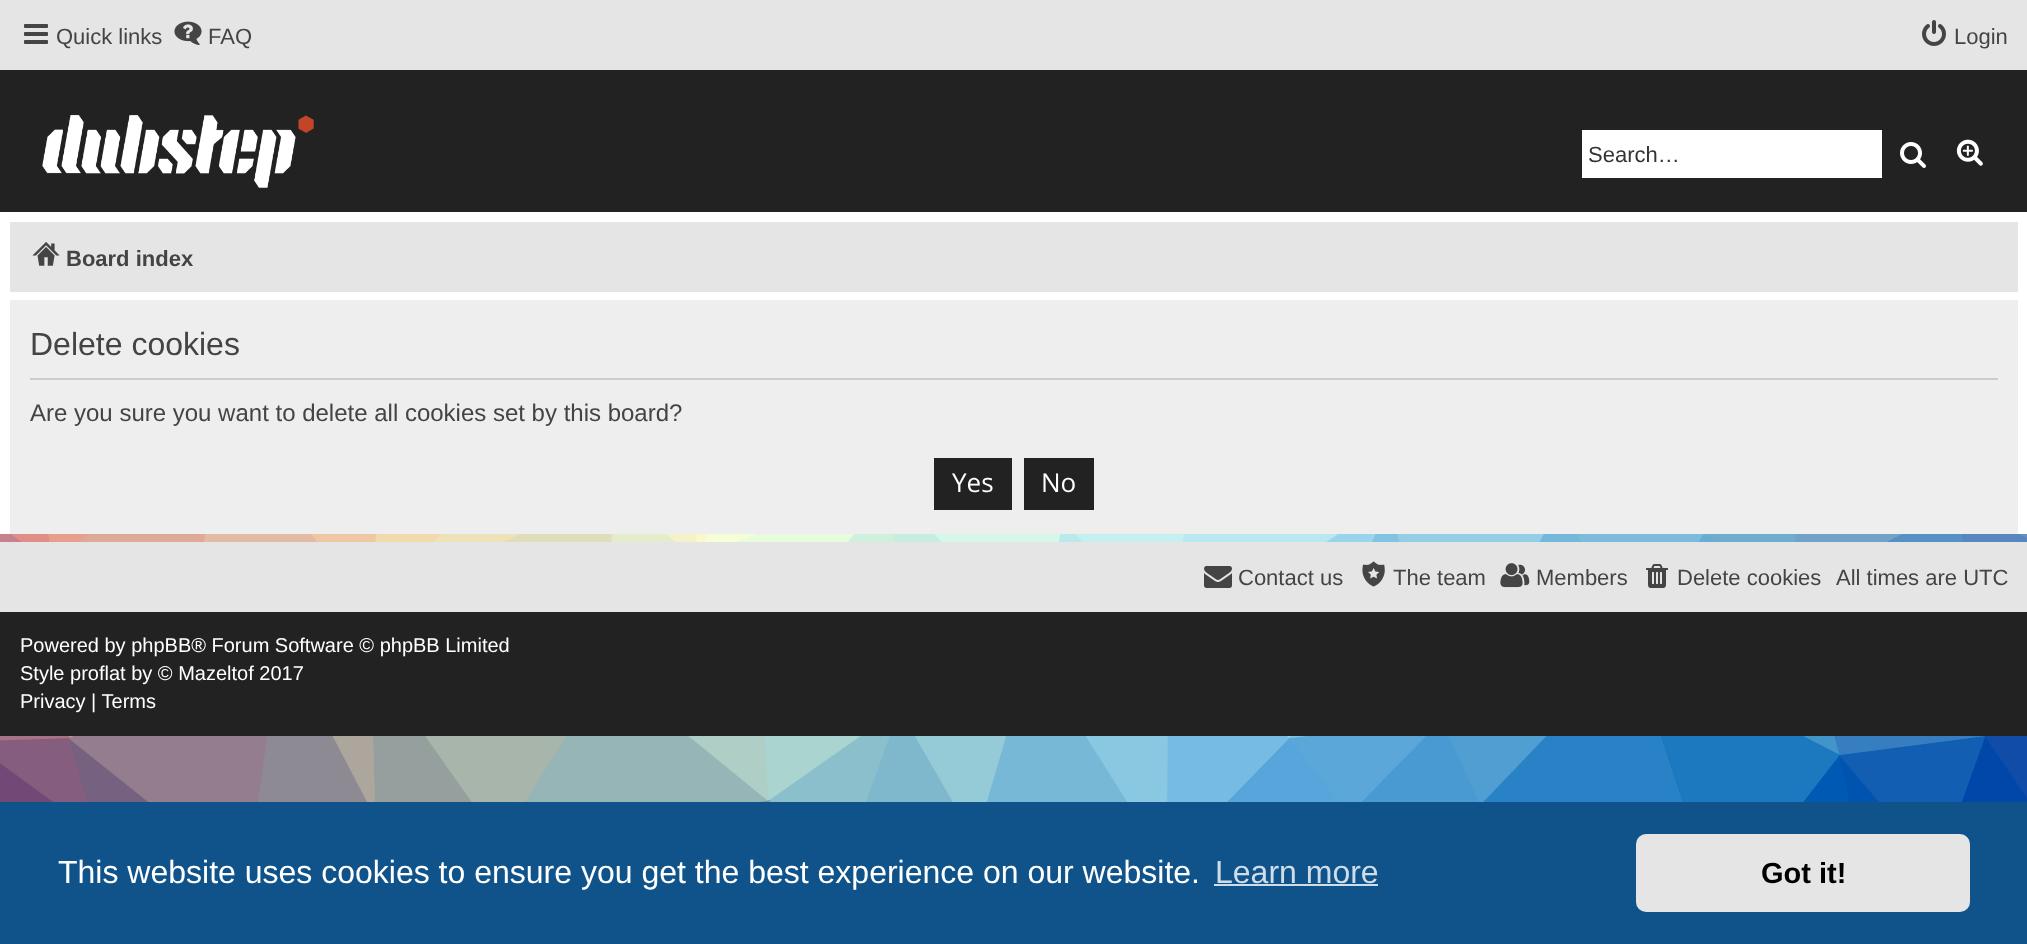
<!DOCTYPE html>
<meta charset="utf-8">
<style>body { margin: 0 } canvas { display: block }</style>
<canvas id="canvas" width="2027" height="944"></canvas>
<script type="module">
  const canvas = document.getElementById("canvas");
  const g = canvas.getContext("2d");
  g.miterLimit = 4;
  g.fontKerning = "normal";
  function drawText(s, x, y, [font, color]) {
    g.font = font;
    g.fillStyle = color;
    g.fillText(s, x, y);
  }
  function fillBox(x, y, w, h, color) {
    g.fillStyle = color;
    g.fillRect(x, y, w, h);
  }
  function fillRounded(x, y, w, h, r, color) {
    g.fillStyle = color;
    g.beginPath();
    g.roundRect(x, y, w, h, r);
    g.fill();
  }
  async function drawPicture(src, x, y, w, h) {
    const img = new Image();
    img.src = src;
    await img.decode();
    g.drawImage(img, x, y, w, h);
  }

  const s1 = ["22px Liberation Sans", "#444444"];
  const s2 = ["22px Liberation Sans", "#333333"];
  const s3 = ["bold 22px Liberation Sans", "#444444"];
  const s4 = ["32px Liberation Sans", "#444444"];
  const s5 = ["24px Liberation Sans", "#444444"];
  const s6 = ["26px Open Sans", "#FFFFFF"];
  const s7 = ["20px Liberation Sans", "#FFFFFF"];
  const s8 = ["32px Liberation Sans", "#FFFFFF"];
  const s9 = ["32px Liberation Sans", "#CFDDE8"];
  const s10 = ["bold 29px Liberation Sans", "#000000"];

  fillBox(0, 0, 2027, 944, "#FFFFFF");
  await drawPicture("pic1.png", 0, 534, 2027, 268);
  await drawPicture("pic2.png", 7, 534, 1969, 268);
  fillBox(0, 0, 2027, 70, "#E5E5E5");
  await drawPicture("pic3.png", 24, 24, 24, 20);
  drawText("Quick links", 56, 44, s1);
  await drawPicture("pic4.png", 174, 21, 28, 24);
  drawText("FAQ", 208, 44, s1);
  await drawPicture("pic5.png", 1922, 20, 24, 26);
  drawText("Login", 1954, 44, s1);
  fillBox(0, 70, 2027, 142, "#222222");
  await drawPicture("pic6.png", 42, 114, 272, 74);
  fillBox(1582, 130, 300, 48, "#FFFFFF");
  drawText("Search…", 1588, 162, s2);
  await drawPicture("pic7.png", 1900, 142, 26, 26);
  await drawPicture("pic8.png", 1956, 139, 27, 27);
  fillBox(10, 222, 2008, 70, "#E5E5E5");
  await drawPicture("pic9.png", 32, 242, 28, 24);
  drawText("Board index", 66, 266, s3);
  fillBox(10, 300, 2008, 234, "#EEEEEE");
  fillBox(30, 378, 1968, 2, "#CCCCCC");
  drawText("Delete cookies", 30, 355, s4);
  drawText("Are you sure you want to delete all cookies set by this board?", 30, 421, s5);
  fillBox(934, 458, 78, 52, "#222222");
  drawText("Yes", 952, 492, s6);
  fillBox(1024, 458, 70, 52, "#222222");
  drawText("No", 1041, 492, s6);
  fillBox(0, 542, 2027, 70, "#E5E5E5");
  await drawPicture("pic10.png", 1204, 566, 28, 22);
  drawText("Contact us", 1238, 585, s1);
  await drawPicture("pic11.png", 1362, 561, 23, 26);
  drawText("The team", 1393, 585, s1);
  await drawPicture("pic12.png", 1500, 563, 30, 25);
  drawText("Members", 1536, 585, s1);
  await drawPicture("pic13.png", 1646, 564, 22, 24);
  drawText("Delete cookies", 1677, 585, s1);
  drawText("All times are UTC", 1836, 585, s1);
  fillBox(0, 612, 2027, 124, "#222222");
  drawText("Powered by phpBB® Forum Software © phpBB Limited", 20, 652, s7);
  drawText("Style proflat by © Mazeltof 2017", 20, 680, s7);
  drawText("Privacy | Terms", 20, 708, s7);
  fillBox(0, 802, 2027, 142, "#0F538A");
  drawText("This website uses cookies to ensure you get the best experience on our website.", 58, 883, s8);
  drawText("Learn more", 1215, 883, s9);
  fillBox(1214, 884, 164, 2, "#CFDDE8");
  fillRounded(1636, 834, 334, 78, 10, "#E5E5E5");
  drawText("Got it!", 1761, 883, s10);
</script>
